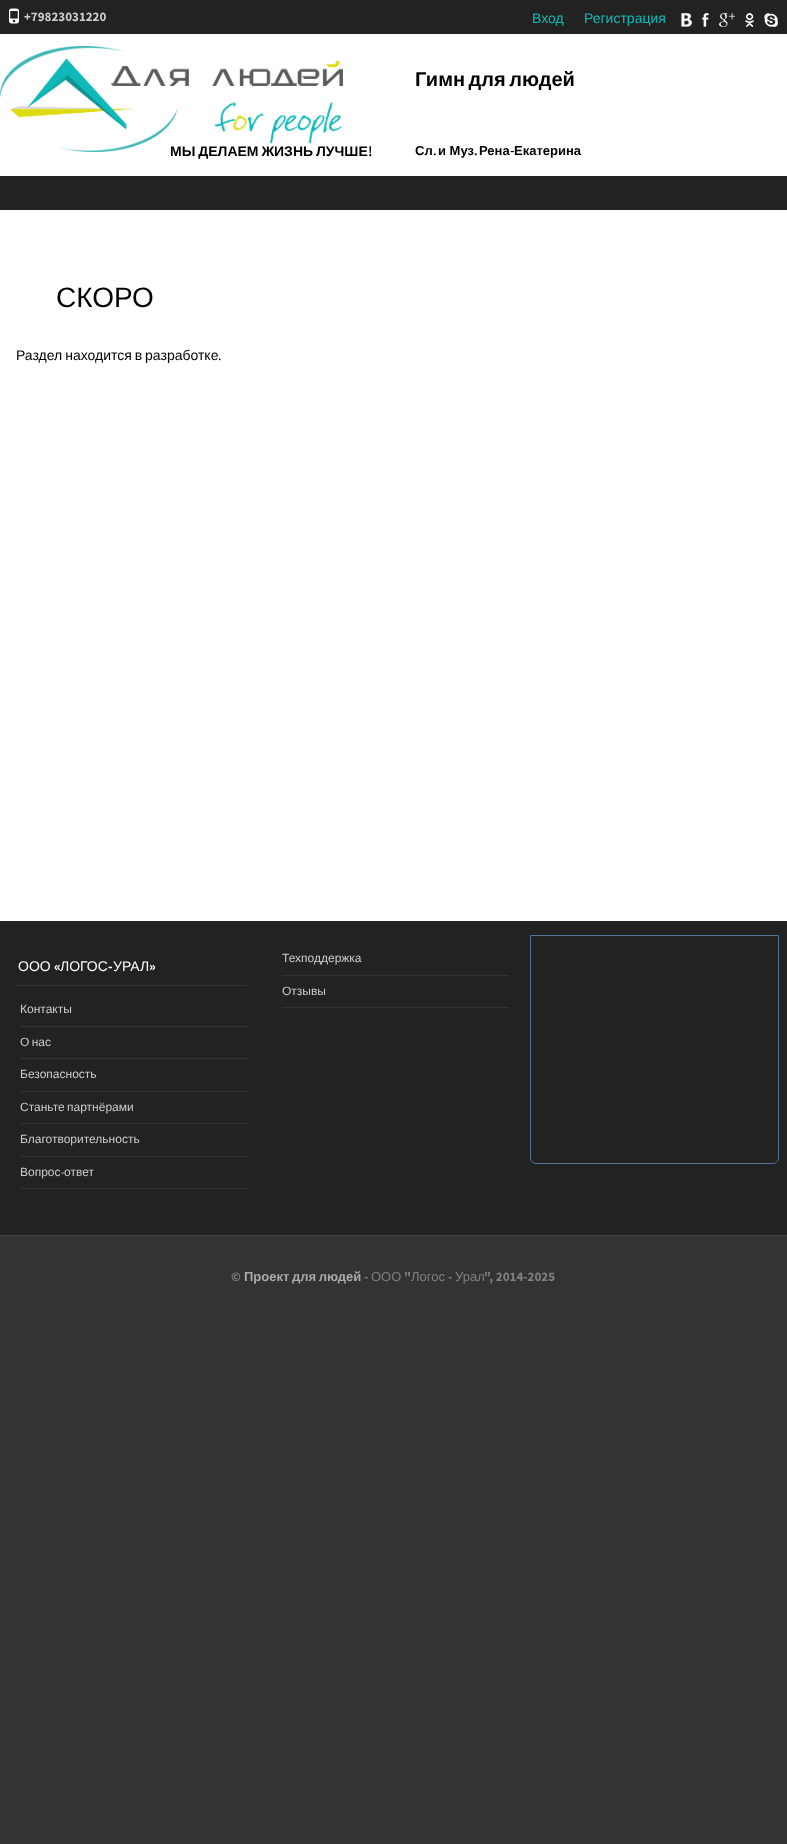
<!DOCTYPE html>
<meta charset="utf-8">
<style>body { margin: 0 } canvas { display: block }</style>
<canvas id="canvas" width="787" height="1844"></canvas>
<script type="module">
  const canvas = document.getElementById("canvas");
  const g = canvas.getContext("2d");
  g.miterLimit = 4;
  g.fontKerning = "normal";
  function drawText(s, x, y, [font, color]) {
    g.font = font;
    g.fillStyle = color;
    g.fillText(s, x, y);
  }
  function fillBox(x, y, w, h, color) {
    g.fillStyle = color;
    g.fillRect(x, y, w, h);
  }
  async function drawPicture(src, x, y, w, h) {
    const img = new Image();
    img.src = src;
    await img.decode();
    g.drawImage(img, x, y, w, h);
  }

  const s1 = ["bold 13px Source Sans Pro", "#CCCCCC"];
  const s2 = ["14px Liberation Sans", "#10B9B9"];
  const s3 = ["bold 14px Liberation Sans", "#000000"];
  const s4 = ["bold 20px Liberation Sans", "#000000"];
  const s5 = ["bold 13px Liberation Sans", "#000000"];
  const s6 = ["bold 13px 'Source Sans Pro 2'", "#000000"];
  const s7 = ["bold 14px 'Source Sans Pro 2'", "#000000"];
  const s8 = ["28px Liberation Sans", "#000000"];
  const s9 = ["14px Liberation Sans", "#000000"];
  const s10 = ["14px Source Sans Pro", "#000000"];
  const s11 = ["14px Liberation Sans", "#FFFFFF"];
  const s12 = ["bold 14px Source Sans Pro", "#FFFFFF"];
  const s13 = ["12px Liberation Sans", "#CCCCCC"];
  const s14 = ["12px Source Sans Pro", "#CCCCCC"];
  const s15 = ["bold 13px Source Sans Pro", "#808080"];
  const s16 = ["bold 13px Liberation Sans", "#AAAAAA"];
  const s17 = ["13px Liberation Sans", "#808080"];

  fillBox(0, 0, 787, 1844, "#333333");
  fillBox(0, 34, 787, 887, "#FFFFFF");
  fillBox(0, 0, 787, 34, "#222222");
  await drawPicture("pic1.png", 9, 8, 10, 16);
  drawText("+79823031220", 24, 21, s1);
  drawText("Вход", 532, 23, s2);
  drawText("Регистрация", 584, 23, s2);
  await drawPicture("pic2.png", 681, 13, 11, 14);
  await drawPicture("pic3.png", 702, 13, 7, 14);
  await drawPicture("pic4.png", 719, 13, 16, 14);
  await drawPicture("pic5.png", 745, 13, 9, 14);
  await drawPicture("pic6.png", 764, 13, 14, 14);
  g.wordSpacing = "-1px";
  drawText("МЫ ДЕЛАЕМ ЖИЗНЬ ЛУЧШЕ", 170, 156, s3);
  await drawPicture("pic7.png", 0, 46, 343, 106);
  g.wordSpacing = "-2px";
  drawText("Гимн для людей", 415, 86, s4);
  g.wordSpacing = "0px";
  drawText("Сл", 415, 155, s5);
  drawText("и Муз", 438, 155, s5);
  drawText("Рена", 479, 155, s5);
  drawText("-", 510, 155, s6);
  drawText("Екатерина", 514, 155, s5);
  drawText(".", 433, 155, s6);
  drawText(".", 474, 155, s6);
  drawText("!", 368, 156, s7);
  fillBox(0, 176, 787, 34, "#222222");
  drawText("СКОРО", 56, 307, s8);
  g.wordSpacing = "-1px";
  drawText("Раздел находится в разработке", 16, 360, s9);
  g.wordSpacing = "0px";
  drawText(".", 218, 360, s10);
  fillBox(0, 921, 787, 314, "#222222");
  fillBox(15, 985, 232, 1, "#333333");
  drawText("ООО", 18, 971, s11);
  drawText("«", 54, 971, s12);
  drawText("ЛОГОС", 60, 971, s11);
  drawText("-", 108, 971, s12);
  drawText("УРАЛ", 113, 971, s11);
  drawText("»", 149, 971, s12);
  fillBox(20, 1026, 228, 1, "#333333");
  drawText("Контакты", 20, 1013, s13);
  fillBox(20, 1058, 228, 1, "#333333");
  g.wordSpacing = "-1px";
  drawText("О нас", 20, 1046, s13);
  fillBox(20, 1091, 228, 1, "#333333");
  g.wordSpacing = "0px";
  drawText("Безопасность", 20, 1078, s13);
  fillBox(20, 1123, 228, 1, "#333333");
  g.wordSpacing = "-1px";
  drawText("Станьте партнёрами", 20, 1111, s13);
  fillBox(20, 1156, 228, 1, "#333333");
  g.wordSpacing = "0px";
  drawText("Благотворительность", 20, 1143, s13);
  fillBox(20, 1188, 228, 1, "#333333");
  drawText("Вопрос", 20, 1176, s13);
  drawText("-", 61, 1176, s14);
  drawText("ответ", 64, 1176, s13);
  fillBox(282, 975, 227, 1, "#333333");
  drawText("Техподдержка", 282, 962, s13);
  fillBox(282, 1007, 227, 1, "#333333");
  drawText("Отзывы", 282, 995, s13);
  g.beginPath();
  g.roundRect(530.5, 935.5, 248, 228, [0, 0, 5.5, 5.5]);
  g.strokeStyle = "#517397";
  g.stroke();
  fillBox(0, 1235, 787, 1, "#444444");
  drawText("©", 231, 1281, s15);
  g.wordSpacing = "-1px";
  drawText("Проект для людей", 244, 1281, s16);
  g.wordSpacing = "0px";
  drawText("-", 364, 1281, s15);
  drawText("ООО", 371, 1281, s17);
  drawText("\"", 404, 1281, s15);
  drawText("Логос", 411, 1281, s17);
  drawText("-", 448, 1281, s15);
  drawText("Урал", 455, 1281, s17);
  drawText("\", 2014-2025", 484, 1281, s15);
</script>
